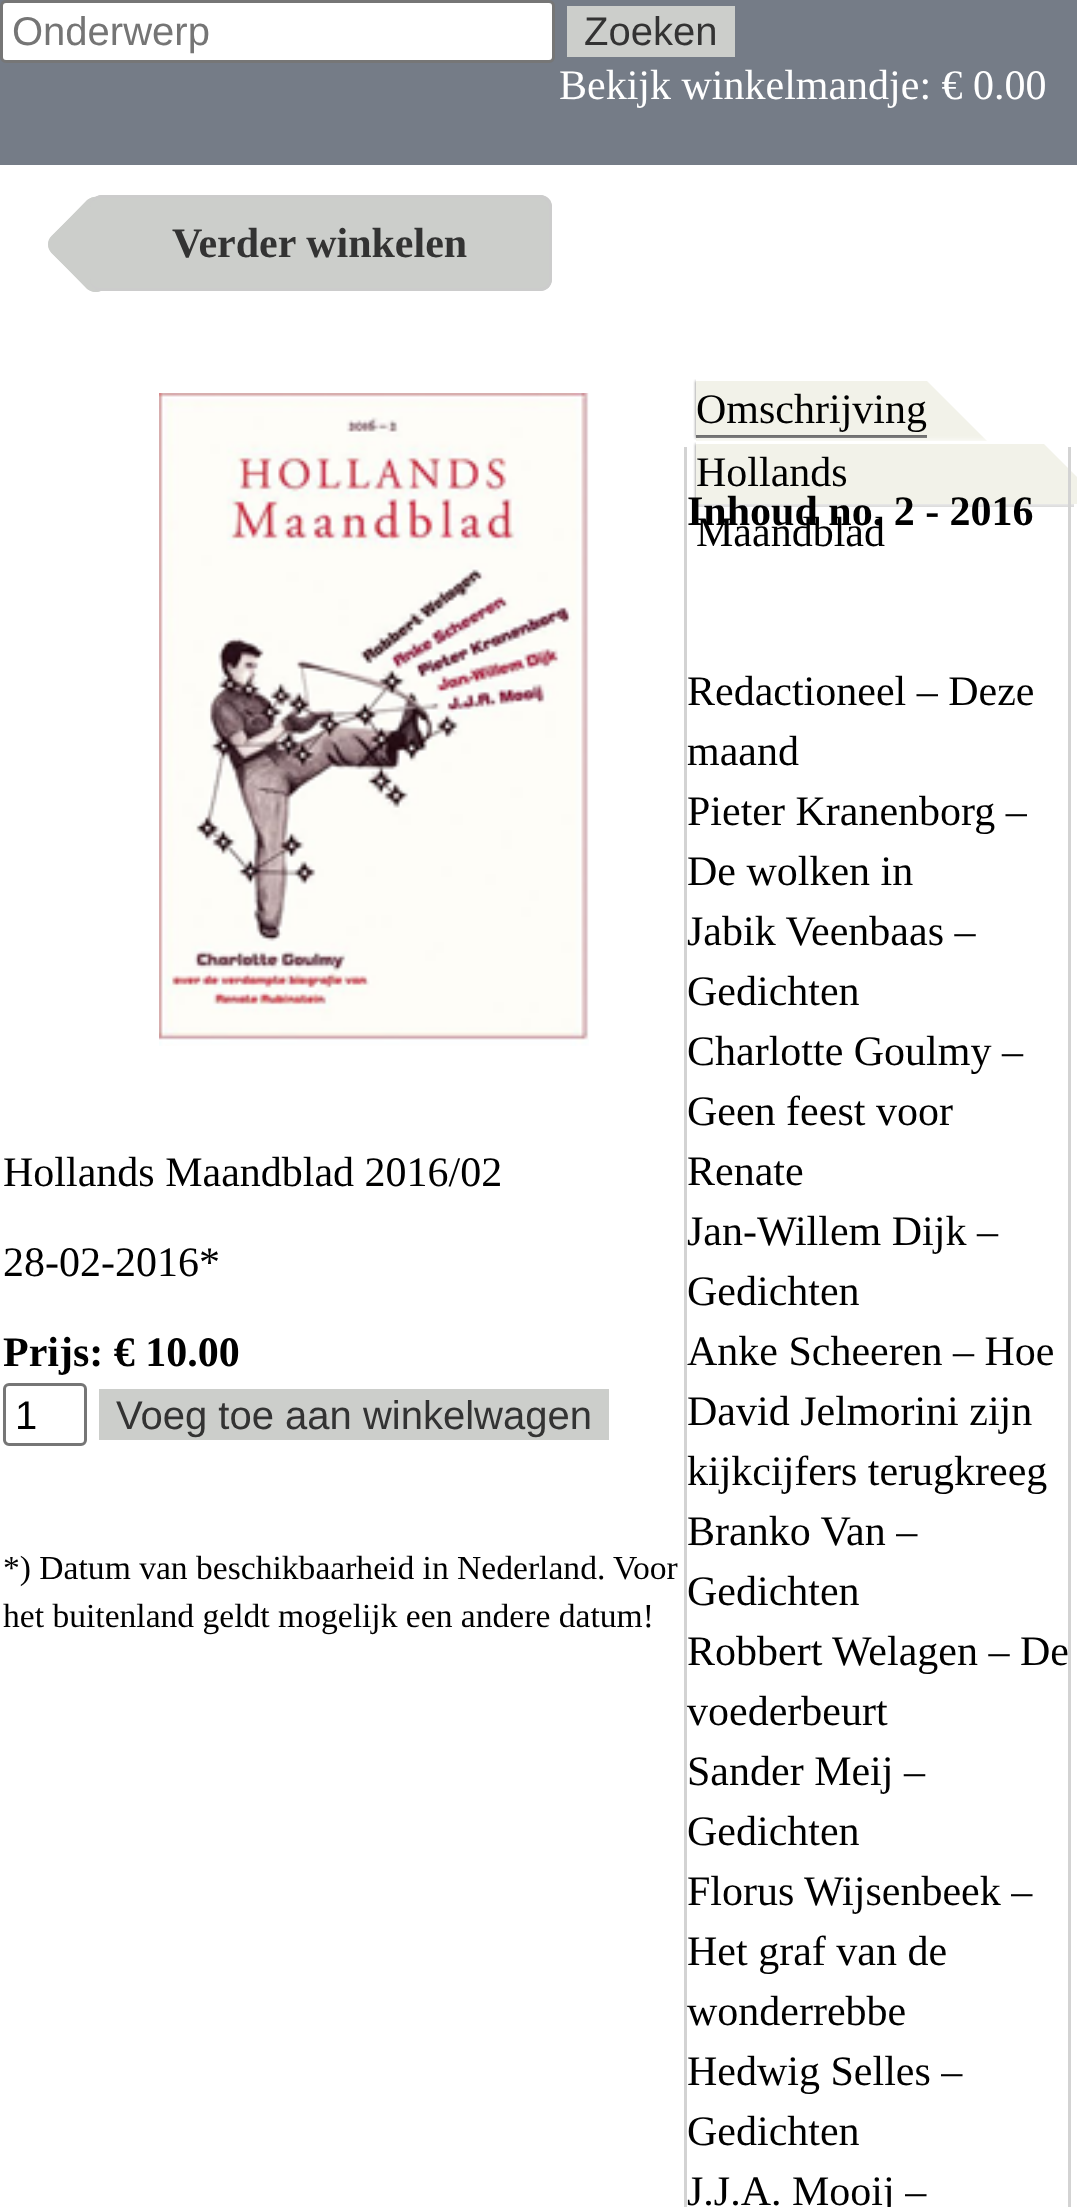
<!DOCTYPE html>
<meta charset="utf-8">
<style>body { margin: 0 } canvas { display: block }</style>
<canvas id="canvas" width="1077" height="2207"></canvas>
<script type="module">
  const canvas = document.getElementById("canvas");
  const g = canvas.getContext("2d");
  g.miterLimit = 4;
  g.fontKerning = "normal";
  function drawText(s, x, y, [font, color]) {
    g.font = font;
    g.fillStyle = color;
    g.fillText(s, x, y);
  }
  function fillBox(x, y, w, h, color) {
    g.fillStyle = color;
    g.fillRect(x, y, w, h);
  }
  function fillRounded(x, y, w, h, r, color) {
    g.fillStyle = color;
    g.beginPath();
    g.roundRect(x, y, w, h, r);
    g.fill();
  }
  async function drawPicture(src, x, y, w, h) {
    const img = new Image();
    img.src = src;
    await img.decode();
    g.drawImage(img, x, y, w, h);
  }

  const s1 = ["40px Liberation Sans", "#757575"];
  const s2 = ["40px Liberation Sans", "#333333"];
  const s3 = ["42px Liberation Serif", "#FFFFFF"];
  const s4 = ["bold 42px Liberation Serif", "#333333"];
  const s5 = ["42px Liberation Serif", "#000000"];
  const s6 = ["bold 42px Liberation Serif", "#000000"];
  const s7 = ["40px Liberation Sans", "#000000"];
  const s8 = ["33.6px Liberation Serif", "#000000"];

  fillBox(0, 0, 1077, 2207, "#FFFFFF");
  fillBox(0, 0, 1077, 165, "#757C87");
  g.fillStyle = "#FFFFFF";
  g.beginPath();
  g.roundRect(1.5, 1.5, 552, 60, 4.5);
  g.fill();
  g.strokeStyle = "#767676";
  g.lineWidth = 3;
  g.stroke();
  drawText("Onderwerp", 12, 45, s1);
  fillBox(567, 6, 168, 51, "#CCCECB");
  drawText("Zoeken", 584, 45, s2);
  drawText("Bekijk winkelmandje: € 0.00", 559, 99, s3);
  g.fillStyle = "#CCCECB";
  g.beginPath();
  g.moveTo(104, 200);
  g.lineTo(140, 236);
  g.bezierCurveTo(145, 241, 145, 248, 140, 253);
  g.lineTo(104, 289);
  g.bezierCurveTo(100, 293, 92, 293, 87, 289);
  g.lineTo(52, 253);
  g.bezierCurveTo(47, 248, 47, 241, 52, 236);
  g.lineTo(87, 200);
  g.bezierCurveTo(92, 196, 100, 196, 104, 200);
  g.closePath();
  g.fill();
  g.beginPath();
  g.moveTo(103, 201.5);
  g.lineTo(139, 237);
  g.bezierCurveTo(143, 241, 143, 247.5, 139, 252);
  g.lineTo(103, 287.5);
  g.bezierCurveTo(99, 291.5, 92.5, 291.5, 88.5, 287.5);
  g.lineTo(52.5, 252);
  g.bezierCurveTo(48.5, 247.5, 48.5, 241, 52.5, 237);
  g.lineTo(88.5, 201.5);
  g.bezierCurveTo(92.5, 197, 99, 197, 103, 201.5);
  g.closePath();
  g.strokeStyle = "#CCCECB";
  g.stroke();
  fillRounded(90, 195, 462, 96, 12, "#CCCECB");
  g.fillStyle = "#CCCCCC";
  g.beginPath();
  g.moveTo(102, 195);
  g.lineTo(540, 195);
  g.bezierCurveTo(547, 195, 552, 200, 552, 207);
  g.lineTo(552, 279);
  g.bezierCurveTo(552, 286, 547, 291, 540, 291);
  g.lineTo(102, 291);
  g.bezierCurveTo(95, 291, 90, 286, 90, 279);
  g.lineTo(90, 207);
  g.bezierCurveTo(90, 200, 95, 195, 102, 195);
  g.closePath();
  g.moveTo(102, 198);
  g.lineTo(540, 198);
  g.bezierCurveTo(545, 198, 549, 202, 549, 207);
  g.lineTo(549, 279);
  g.bezierCurveTo(549, 284, 545, 288, 540, 288);
  g.lineTo(102, 288);
  g.bezierCurveTo(95, 288, 90, 284, 90, 279);
  g.lineTo(90, 207);
  g.bezierCurveTo(90, 202, 95, 198, 102, 198);
  g.closePath();
  g.fill("evenodd");
  drawText("Verder winkelen", 172, 257, s4);
  drawText("Hollands Maandblad 2016/02", 3, 1186, s5);
  drawText("28-02-2016*", 3, 1276, s5);
  drawText("Prijs: € 10.00", 3, 1366, s6);
  await drawPicture("pic1.png", 159, 393, 430, 653);
  fillBox(693, 504, 381, 3, "#D3D3D3");
  g.save();
  g.beginPath();
  g.rect(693, 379, 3, 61);
  g.clip();
  g.fillStyle = "#000000";
  g.filter = "blur(1.5px)";
  g.beginPath();
  g.rect(696, 381, 285, 57);
  g.fill();
  g.filter = "none";
  g.restore();
  g.save();
  g.beginPath();
  g.moveTo(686, 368);
  g.lineTo(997, 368);
  g.lineTo(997, 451);
  g.lineTo(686, 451);
  g.closePath();
  g.moveTo(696, 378);
  g.lineTo(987, 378);
  g.lineTo(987, 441);
  g.lineTo(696, 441);
  g.closePath();
  g.clip("evenodd");
  g.fillStyle = "#FFFFFF";
  g.filter = "blur(3px)";
  g.beginPath();
  g.rect(696, 378, 291, 63);
  g.fill();
  g.filter = "none";
  g.restore();
  g.fillStyle = "#F2F2E9";
  g.beginPath();
  g.moveTo(987, 441);
  g.lineTo(696, 441);
  g.lineTo(696, 381);
  g.lineTo(927, 381);
  g.closePath();
  g.fill();
  drawText("Omschrijving", 696, 423, s5);
  fillBox(696, 435, 231, 3, "#696969");
  g.save();
  g.beginPath();
  g.rect(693, 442, 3, 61);
  g.clip();
  g.fillStyle = "#000000";
  g.filter = "blur(1.5px)";
  g.beginPath();
  g.rect(696, 444, 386, 57);
  g.fill();
  g.filter = "none";
  g.restore();
  g.save();
  g.beginPath();
  g.moveTo(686, 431);
  g.lineTo(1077, 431);
  g.lineTo(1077, 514);
  g.lineTo(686, 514);
  g.closePath();
  g.moveTo(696, 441);
  g.lineTo(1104, 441);
  g.lineTo(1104, 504);
  g.lineTo(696, 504);
  g.closePath();
  g.clip("evenodd");
  g.fillStyle = "#FFFFFF";
  g.filter = "blur(3px)";
  g.beginPath();
  g.rect(696, 441, 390, 63);
  g.fill();
  g.filter = "none";
  g.restore();
  g.fillStyle = "#F2F2E9";
  g.beginPath();
  g.moveTo(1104, 504);
  g.lineTo(696, 504);
  g.lineTo(696, 444);
  g.lineTo(1044, 444);
  g.closePath();
  g.fill();
  fillBox(1068, 447, 3, 1760, "#D3D3D3");
  fillBox(684, 447, 3, 1760, "#D3D3D3");
  drawText("Inhoud no. 2 - 2016", 687, 525, s6);
  drawText("Redactioneel – Deze", 687, 705, s5);
  drawText("maand", 687, 765, s5);
  drawText("Pieter Kranenborg –", 687, 825, s5);
  drawText("De wolken in", 687, 885, s5);
  drawText("Jabik Veenbaas –", 687, 945, s5);
  drawText("Gedichten", 687, 1005, s5);
  drawText("Charlotte Goulmy –", 687, 1065, s5);
  drawText("Geen feest voor", 687, 1125, s5);
  drawText("Renate", 687, 1185, s5);
  drawText("Jan-Willem Dijk –", 687, 1245, s5);
  drawText("Gedichten", 687, 1305, s5);
  drawText("Anke Scheeren – Hoe", 687, 1365, s5);
  drawText("David Jelmorini zijn", 687, 1425, s5);
  drawText("kijkcijfers terugkreeg", 687, 1485, s5);
  drawText("Branko Van –", 687, 1545, s5);
  drawText("Gedichten", 687, 1605, s5);
  drawText("Robbert Welagen – De", 687, 1665, s5);
  drawText("voederbeurt", 687, 1725, s5);
  drawText("Sander Meij –", 687, 1785, s5);
  drawText("Gedichten", 687, 1845, s5);
  drawText("Florus Wijsenbeek –", 687, 1905, s5);
  drawText("Het graf van de", 687, 1965, s5);
  drawText("wonderrebbe", 687, 2025, s5);
  drawText("Hedwig Selles –", 687, 2085, s5);
  drawText("Gedichten", 687, 2145, s5);
  drawText("J.J.A. Mooij –", 687, 2205, s5);
  drawText("Hollands", 696, 486, s5);
  drawText("Maandblad", 696, 546, s5);
  g.beginPath();
  g.roundRect(4.5, 1384.5, 81, 60, 4.5);
  g.strokeStyle = "#767676";
  g.stroke();
  drawText("1", 15, 1429, s7);
  fillBox(99, 1389, 510, 51, "#CCCECB");
  drawText("Voeg toe aan winkelwagen", 116, 1429, s2);
  drawText("*) Datum van beschikbaarheid in Nederland. Voor", 3, 1579, s8);
  drawText("het buitenland geldt mogelijk een andere datum!", 3, 1627, s8);
</script>
